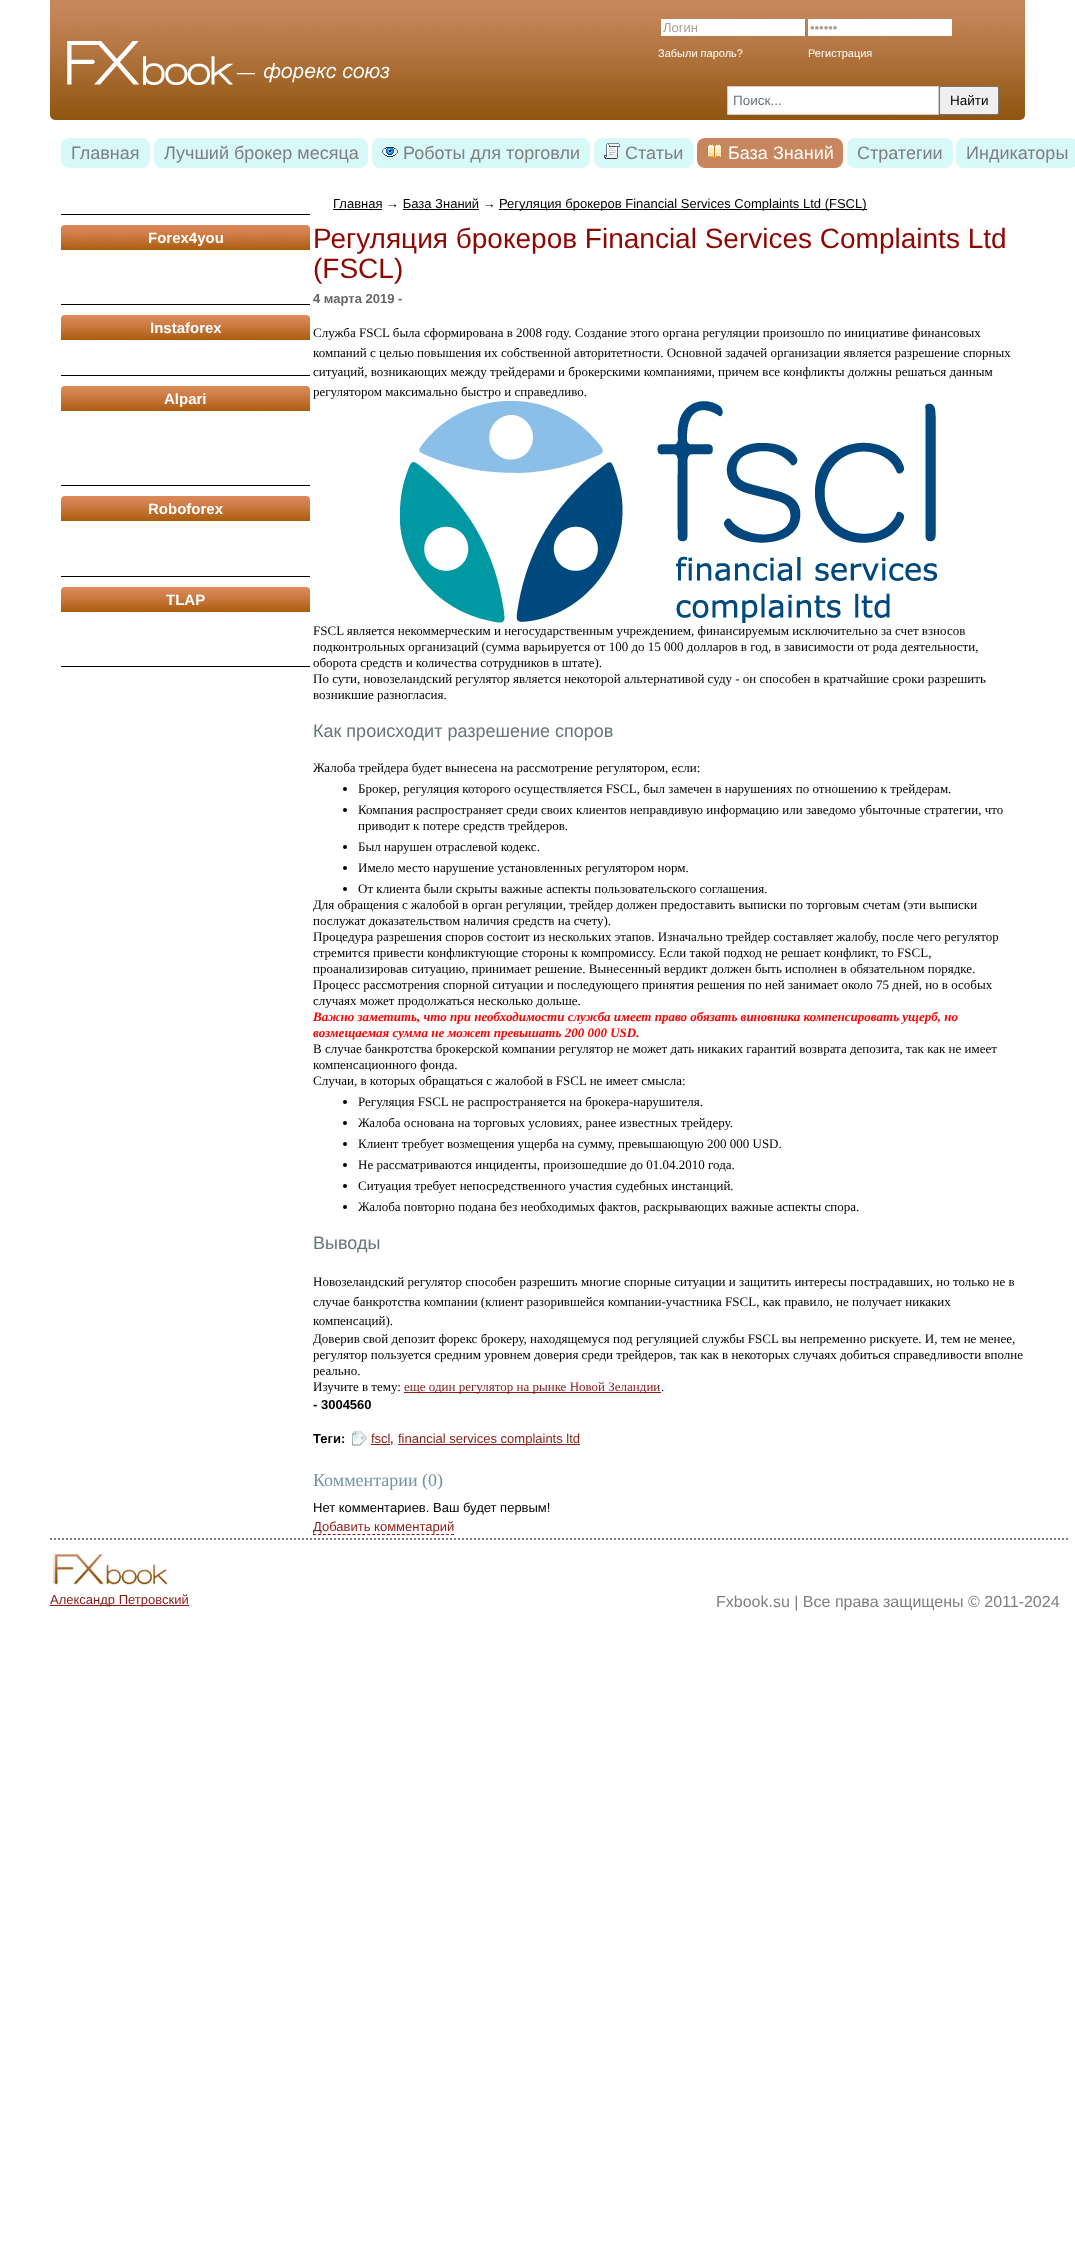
<!DOCTYPE html>
<meta charset="utf-8">
<style>body { margin: 0 } canvas { display: block }</style>
<canvas id="canvas" width="1075" height="2265"></canvas>
<script type="module">
  const canvas = document.getElementById("canvas");
  const g = canvas.getContext("2d");
  g.miterLimit = 4;
  g.fontKerning = "normal";
  function drawText(s, x, y, [font, color]) {
    g.font = font;
    g.fillStyle = color;
    g.fillText(s, x, y);
  }
  function fillBox(x, y, w, h, color) {
    g.fillStyle = color;
    g.fillRect(x, y, w, h);
  }
  function fillRounded(x, y, w, h, r, color) {
    g.fillStyle = color;
    g.beginPath();
    g.roundRect(x, y, w, h, r);
    g.fill();
  }
  async function drawPicture(src, x, y, w, h) {
    const img = new Image();
    img.src = src;
    await img.decode();
    g.drawImage(img, x, y, w, h);
  }

  const s1 = ["13px Liberation Sans", "#A89D97"];
  const s2 = ["11px Liberation Sans", "#FFFFFF"];
  const s3 = ["13.5px Liberation Sans", "#677577"];
  const s4 = ["13.5px Liberation Sans", "#000000"];
  const s5 = ["18px Liberation Sans", "#7F7F7F"];
  const s6 = ["18px Liberation Sans", "#FFFFFF"];
  const s7 = ["bold 15px Liberation Sans", "#FFFFFF"];
  const s8 = ["13px Liberation Sans", "#000000"];
  const s9 = ["28px Liberation Sans", "#8F0600"];
  const s10 = ["bold 13px Liberation Sans", "#666666"];
  const s11 = ["13px Liberation Serif", "#000000"];
  const s12 = ["18px Liberation Sans", "#677577"];
  const s13 = ["italic bold 13px Liberation Serif", "#FF0000"];
  const s14 = ["13px Liberation Serif", "#8A1A15"];
  const s15 = ["bold 13px Liberation Sans", "#000000"];
  const s16 = ["13px Liberation Sans", "#8A1A15"];
  const s17 = ["18px Liberation Serif", "#7192A6"];
  const s18 = ["16px Liberation Sans", "#7F7F7F"];

  fillBox(0, 0, 1075, 2265, "#FFFFFF");
  await drawPicture("pic1.png", 50, 0, 975, 120);
  await drawPicture("pic2.png", 67, 41, 323, 44);
  fillBox(661, 19, 144, 17, "#FFFFFF");
  drawText("Логин", 663, 32, s1);
  fillBox(808, 19, 144, 17, "#FFFFFF");
  drawText("••••••", 810, 32, s1);
  drawText("Забыли пароль?", 658, 57, s2);
  drawText("Регистрация", 808, 57, s2);
  g.beginPath();
  g.rect(727.5, 86.5, 211, 28);
  g.fill();
  g.strokeStyle = "#CCCCCC";
  g.stroke();
  drawText("Поиск...", 733, 105, s3);
  g.fillStyle = "#EFEFEF";
  g.beginPath();
  g.roundRect(939.5, 86.5, 59, 28, 1.5);
  g.fill();
  g.strokeStyle = "#767676";
  g.stroke();
  drawText("Найти", 950, 105, s4);
  fillRounded(61, 138, 89, 30, 8, "#D7F9F8");
  drawText("Главная", 71, 159, s5);
  fillRounded(154, 138, 214, 30, 8, "#D7F9F8");
  drawText("Лучший брокер месяца", 164, 159, s5);
  fillRounded(372, 138, 218, 30, 8, "#D7F9F8");
  await drawPicture("pic3.png", 382, 147, 16, 10);
  drawText("Роботы для торговли", 403, 159, s5);
  fillRounded(594, 138, 99, 30, 8, "#D7F9F8");
  await drawPicture("pic4.png", 604, 143, 16, 16);
  drawText("Статьи", 625, 159, s5);
  fillRounded(697, 138, 146, 30, 8, "#C7865E");
  await drawPicture("pic5.png", 707, 144, 15, 14);
  drawText("База Знаний", 728, 159, s6);
  fillRounded(847, 138, 106, 30, 8, "#D7F9F8");
  drawText("Стратегии", 857, 159, s5);
  fillRounded(956, 138, 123, 30, 8, "#D7F9F8");
  drawText("Индикаторы", 966, 159, s5);
  fillBox(61, 214, 249, 1, "#000000");
  await drawPicture("pic6.png", 61, 225, 249, 25);
  drawText("Forex4you", 148, 243, s7);
  fillBox(61, 304, 249, 1, "#000000");
  await drawPicture("pic6.png", 61, 315, 249, 25);
  drawText("Instaforex", 150, 333, s7);
  fillBox(61, 375, 249, 1, "#000000");
  await drawPicture("pic6.png", 61, 386, 249, 25);
  drawText("Alpari", 164, 404, s7);
  fillBox(61, 485, 249, 1, "#000000");
  await drawPicture("pic6.png", 61, 496, 249, 25);
  drawText("Roboforex", 148, 514, s7);
  fillBox(61, 576, 249, 1, "#000000");
  await drawPicture("pic6.png", 61, 587, 249, 25);
  drawText("TLAP", 166, 605, s7);
  fillBox(61, 666, 249, 1, "#000000");
  drawText("Главная → База Знаний →", 333, 208, s8);
  fillBox(333, 209, 49, 1, "#000000");
  fillBox(499, 209, 368, 1, "#000000");
  drawText("Регуляция брокеров Financial Services Complaints Ltd (FSCL)", 499, 208, s8);
  fillBox(403, 209, 76, 1, "#000000");
  drawText("Регуляция брокеров Financial Services Complaints Ltd", 313, 248, s9);
  drawText("(FSCL)", 313, 278, s9);
  drawText("4 марта 2019 -", 313, 303, s10);
  drawText("Служба FSCL была сформирована в 2008 году. Создание этого органа регуляции произошло по инициативе финансовых", 313, 337, s11);
  drawText("компаний с целью повышения их собственной авторитетности. Основной задачей организации является разрешение спорных", 313, 357, s11);
  drawText("ситуаций, возникающих между трейдерами и брокерскими компаниями, причем все конфликты должны решаться данным", 313, 376, s11);
  drawText("регулятором максимально быстро и справедливо.", 313, 396, s11);
  await drawPicture("pic7.png", 400, 401, 537, 222);
  drawText("FSCL является некоммерческим и негосударственным учреждением, финансируемым исключительно за счет взносов", 313, 635, s11);
  drawText("подконтрольных организаций (сумма варьируется от 100 до 15 000 долларов в год, в зависимости от рода деятельности,", 313, 651, s11);
  drawText("оборота средств и количества сотрудников в штате).", 313, 667, s11);
  drawText("По сути, новозеландский регулятор является некоторой альтернативой суду - он способен в кратчайшие сроки разрешить", 313, 683, s11);
  drawText("возникшие разногласия.", 313, 699, s11);
  drawText("Как происходит разрешение споров", 313, 737, s12);
  drawText("Жалоба трейдера будет вынесена на рассмотрение регулятором, если:", 313, 772, s11);
  g.beginPath();
  g.arc(345, 789, 2, 0, Math.PI * 2);
  g.fill();
  drawText("Брокер, регуляция которого осуществляется FSCL, был замечен в нарушениях по отношению к трейдерам.", 358, 793, s11);
  g.beginPath();
  g.arc(345, 810, 2, 0, Math.PI * 2);
  g.fill();
  drawText("Компания распространяет среди своих клиентов неправдивую информацию или заведомо убыточные стратегии, что", 358, 814, s11);
  drawText("приводит к потере средств трейдеров.", 358, 830, s11);
  g.beginPath();
  g.arc(345, 847, 2, 0, Math.PI * 2);
  g.fill();
  drawText("Был нарушен отраслевой кодекс.", 358, 851, s11);
  g.beginPath();
  g.arc(345, 868, 2, 0, Math.PI * 2);
  g.fill();
  drawText("Имело место нарушение установленных регулятором норм.", 358, 872, s11);
  g.beginPath();
  g.arc(345, 889, 2, 0, Math.PI * 2);
  g.fill();
  drawText("От клиента были скрыты важные аспекты пользовательского соглашения.", 358, 893, s11);
  drawText("Для обращения с жалобой в орган регуляции, трейдер должен предоставить выписки по торговым счетам (эти выписки", 313, 909, s11);
  drawText("послужат доказательством наличия средств на счету).", 313, 925, s11);
  drawText("Процедура разрешения споров состоит из нескольких этапов. Изначально трейдер составляет жалобу, после чего регулятор", 313, 941, s11);
  drawText("стремится привести конфликтующие стороны к компромиссу. Если такой подход не решает конфликт, то FSCL,", 313, 957, s11);
  drawText("проанализировав ситуацию, принимает решение. Вынесенный вердикт должен быть исполнен в обязательном порядке.", 313, 973, s11);
  drawText("Процесс рассмотрения спорной ситуации и последующего принятия решения по ней занимает около 75 дней, но в особых", 313, 989, s11);
  drawText("случаях может продолжаться несколько дольше.", 313, 1005, s11);
  drawText("Важно заметить, что при необходимости служба имеет право обязать виновника компенсировать ущерб, но", 313, 1021, s13);
  drawText("возмещаемая сумма не может превышать 200 000 USD.", 313, 1037, s13);
  drawText("В случае банкротства брокерской компании регулятор не может дать никаких гарантий возврата депозита, так как не имеет", 313, 1053, s11);
  drawText("компенсационного фонда.", 313, 1069, s11);
  drawText("Случаи, в которых обращаться с жалобой в FSCL не имеет смысла:", 313, 1085, s11);
  g.beginPath();
  g.arc(345, 1102, 2, 0, Math.PI * 2);
  g.fill();
  drawText("Регуляция FSCL не распространяется на брокера-нарушителя.", 358, 1106, s11);
  g.beginPath();
  g.arc(345, 1123, 2, 0, Math.PI * 2);
  g.fill();
  drawText("Жалоба основана на торговых условиях, ранее известных трейдеру.", 358, 1127, s11);
  g.beginPath();
  g.arc(345, 1144, 2, 0, Math.PI * 2);
  g.fill();
  drawText("Клиент требует возмещения ущерба на сумму, превышающую 200 000 USD.", 358, 1148, s11);
  g.beginPath();
  g.arc(345, 1165, 2, 0, Math.PI * 2);
  g.fill();
  drawText("Не рассматриваются инциденты, произошедшие до 01.04.2010 года.", 358, 1169, s11);
  g.beginPath();
  g.arc(345, 1186, 2, 0, Math.PI * 2);
  g.fill();
  drawText("Ситуация требует непосредственного участия судебных инстанций.", 358, 1190, s11);
  g.beginPath();
  g.arc(345, 1207, 2, 0, Math.PI * 2);
  g.fill();
  drawText("Жалоба повторно подана без необходимых фактов, раскрывающих важные аспекты спора.", 358, 1211, s11);
  drawText("Выводы", 313, 1249, s12);
  drawText("Новозеландский регулятор способен разрешить многие спорные ситуации и защитить интересы пострадавших, но только не в", 313, 1286, s11);
  drawText("случае банкротства компании (клиент разорившейся компании-участника FSCL, как правило, не получает никаких", 313, 1306, s11);
  drawText("компенсаций).", 313, 1325, s11);
  drawText("Доверив свой депозит форекс брокеру, находящемуся под регуляцией службы FSCL вы непременно рискуете. И, тем не менее,", 313, 1343, s11);
  drawText("регулятор пользуется средним уровнем доверия среди трейдеров, так как в некоторых случаях добиться справедливости вполне", 313, 1359, s11);
  drawText("реально.", 313, 1375, s11);
  drawText("Изучите в тему:", 313, 1391, s11);
  fillBox(404, 1392, 257, 1, "#8A1A15");
  drawText("еще один регулятор на рынке Новой Зеландии", 404, 1391, s14);
  drawText(".", 661, 1391, s11);
  drawText("- 3004560", 313, 1409, s15);
  drawText("Теги:", 313, 1443, s15);
  await drawPicture("pic8.png", 352, 1431, 15, 15);
  drawText("fscl", 371, 1443, s16);
  drawText(",", 390, 1443, s8);
  fillBox(371, 1444, 19, 1, "#8A1A15");
  fillBox(398, 1444, 182, 1, "#8A1A15");
  drawText("financial services complaints ltd", 398, 1443, s16);
  drawText("Комментарии (0)", 313, 1486, s17);
  drawText("Нет комментариев. Ваш будет первым!", 313, 1512, s8);
  drawText("Добавить комментарий", 313, 1531, s16);
  g.beginPath();
  g.moveTo(313, 1534.5);
  g.lineTo(454, 1534.5);
  g.strokeStyle = "#8A1A15";
  g.setLineDash([3, 1.93]);
  g.stroke();
  g.beginPath();
  g.moveTo(50, 1539);
  g.lineTo(1070, 1539);
  g.strokeStyle = "#7F7F7F";
  g.lineWidth = 2;
  g.setLineDash([2, 2]);
  g.stroke();
  await drawPicture("pic9.png", 53, 1554, 116, 31);
  fillBox(50, 1605, 139, 1, "#8A1A15");
  drawText("Александр Петровский", 50, 1604, s16);
  drawText("Fxbook.su | Все права защищены © 2011-2024", 716, 1607, s18);
</script>
